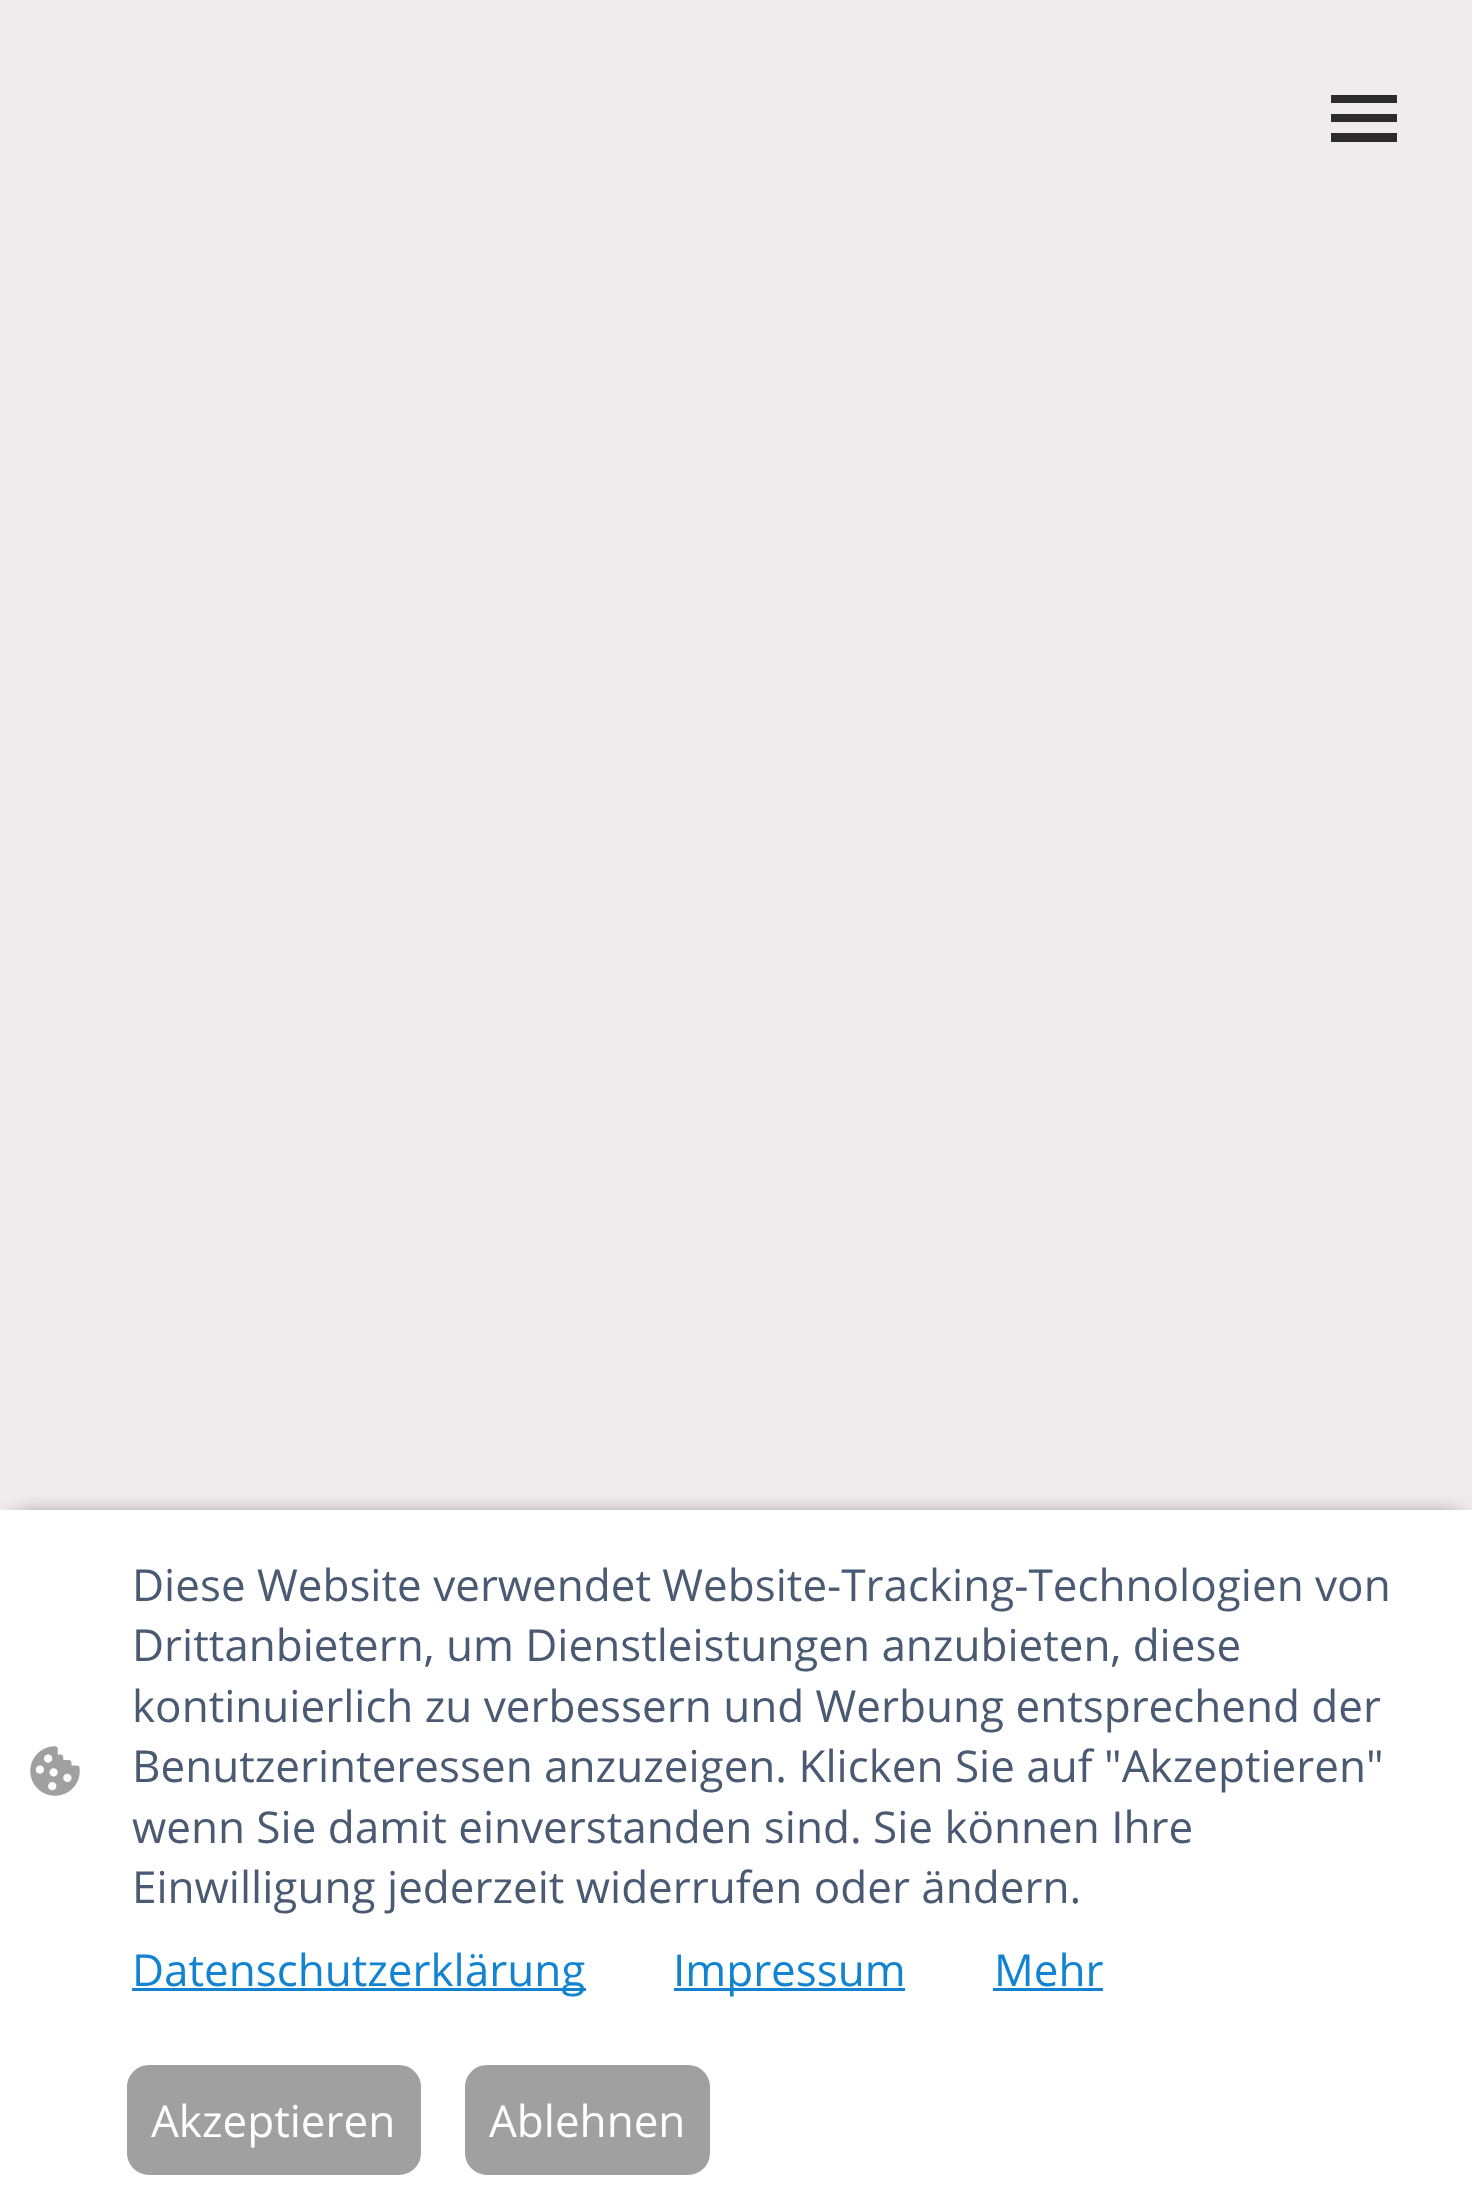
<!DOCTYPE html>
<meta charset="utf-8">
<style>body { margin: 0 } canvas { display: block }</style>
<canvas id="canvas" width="1472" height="2195"></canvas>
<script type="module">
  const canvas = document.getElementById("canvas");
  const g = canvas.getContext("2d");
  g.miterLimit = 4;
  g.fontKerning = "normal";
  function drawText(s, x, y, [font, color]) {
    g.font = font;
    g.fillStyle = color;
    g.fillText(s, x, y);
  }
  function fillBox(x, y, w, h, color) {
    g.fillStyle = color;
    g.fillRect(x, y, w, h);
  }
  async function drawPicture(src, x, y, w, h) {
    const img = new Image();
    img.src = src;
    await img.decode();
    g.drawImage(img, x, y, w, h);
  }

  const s1 = ["44px Open Sans", "#4A5A73"];
  const s2 = ["44px Open Sans", "#1183D1"];
  const s3 = ["44px Open Sans", "#FFFFFF"];

  fillBox(0, 0, 1472, 2195, "#F0EBEC");
  fillBox(1331, 95, 66, 8, "#2C2C2C");
  fillBox(1331, 114, 66, 8, "#2C2C2C");
  fillBox(1331, 133, 66, 9, "#2C2C2C");
  g.fillStyle = "rgba(0, 0, 0, 0.63)";
  g.filter = "blur(11px)";
  g.beginPath();
  g.rect(17, 1518, 1441, 655);
  g.fill();
  g.filter = "none";
  fillBox(0, 1510, 1472, 685, "#FFFFFF");
  await drawPicture("pic1.png", 30, 1746, 50, 50);
  drawText("Diese Website verwendet Website-Tracking-Technologien von", 132, 1601, s1);
  drawText("Drittanbietern, um Dienstleistungen anzubieten, diese", 132, 1661, s1);
  drawText("kontinuierlich zu verbessern und Werbung entsprechend der", 132, 1722, s1);
  drawText("Benutzerinteressen anzuzeigen. Klicken Sie auf \"Akzeptieren\"", 132, 1782, s1);
  drawText("wenn Sie damit einverstanden sind. Sie können Ihre", 132, 1843, s1);
  drawText("Einwilligung jederzeit widerrufen oder ändern.", 132, 1903, s1);
  fillBox(132, 1988, 454, 3, "#1183D1");
  drawText("Datenschutzerklärung", 132, 1986, s2);
  fillBox(674, 1988, 231, 3, "#1183D1");
  drawText("Impressum", 673, 1986, s2);
  drawText("Mehr", 994, 1986, s2);
  fillBox(993, 1988, 110, 3, "#1183D1");
  g.fillStyle = "#A0A0A0";
  g.beginPath();
  g.roundRect(128.5, 2066.5, 291, 107, 20.5);
  g.fill();
  g.strokeStyle = "#A0A0A0";
  g.lineWidth = 3;
  g.stroke();
  drawText("Akzeptieren", 151, 2137, s3);
  g.fillStyle = "#A0A0A0";
  g.beginPath();
  g.roundRect(466.5, 2066.5, 242, 107, 20.5);
  g.fill();
  g.stroke();
  drawText("Ablehnen", 489, 2137, s3);
</script>
